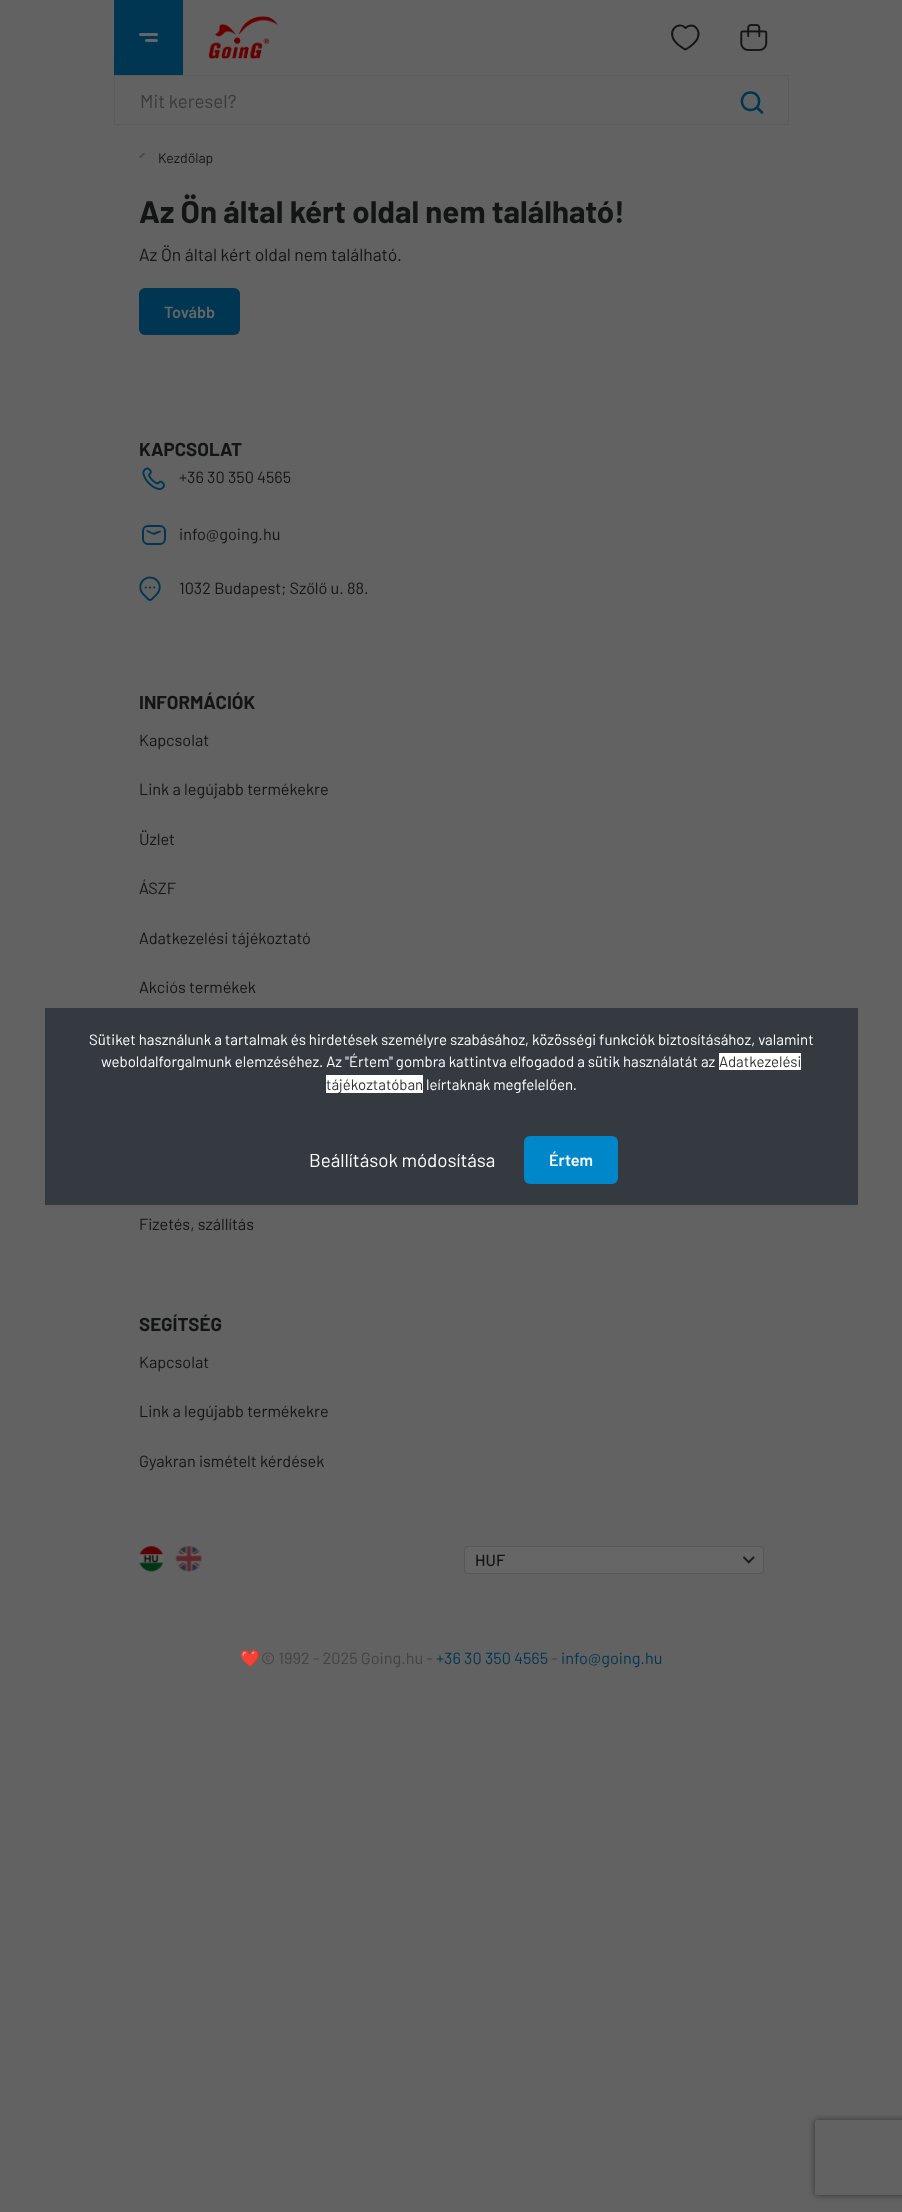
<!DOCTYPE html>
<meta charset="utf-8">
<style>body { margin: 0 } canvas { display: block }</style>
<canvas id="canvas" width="902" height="2212"></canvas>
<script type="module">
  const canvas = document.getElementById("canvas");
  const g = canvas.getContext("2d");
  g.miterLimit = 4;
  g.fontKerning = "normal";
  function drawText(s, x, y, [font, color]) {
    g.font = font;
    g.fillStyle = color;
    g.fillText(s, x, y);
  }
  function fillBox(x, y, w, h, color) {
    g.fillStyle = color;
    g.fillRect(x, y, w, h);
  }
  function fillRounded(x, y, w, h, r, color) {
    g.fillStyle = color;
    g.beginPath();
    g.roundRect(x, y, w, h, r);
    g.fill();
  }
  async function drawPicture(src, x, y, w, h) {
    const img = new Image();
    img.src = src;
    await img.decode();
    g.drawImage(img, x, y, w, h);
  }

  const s1 = ["18.75px Barlow", "#3A3A3B"];
  const s2 = ["14px Barlow", "#131414"];
  const s3 = ["bold 31.25px Barlow", "#131414"];
  const s4 = ["17.5px Barlow", "#131414"];
  const s5 = ["600 16.25px Barlow", "#666666"];
  const s6 = ["bold 18.75px Barlow", "#131414"];
  const s7 = ["16.25px Barlow", "#131414"];
  const s8 = ["500 16.25px Barlow", "#131414"];
  const s9 = ["16.25px Noto Color Emoji", "#434344"];
  const s10 = ["16.25px Barlow", "#434344"];
  const s11 = ["16.25px Barlow", "#003651"];
  const s12 = ["15px Barlow", "#FFFFFF"];
  const s13 = ["15px Barlow", "#2F3132"];
  const s14 = ["18.75px Barlow", "#FFFFFF"];
  const s15 = ["600 16.25px Barlow", "#FFFFFF"];

  fillBox(0, 0, 902, 2212, "#626262");
  fillBox(114, 0, 69, 75, "#003651");
  fillRounded(139, 33, 19, 3, 1.5, "#666666");
  fillRounded(145, 39, 13, 3, 1.5, "#666666");
  await drawPicture("pic1.png", 208, 16, 70, 43);
  g.beginPath();
  g.moveTo(691, 25.5);
  g.bezierCurveTo(696.5, 25.5, 700, 32, 698, 37);
  g.bezierCurveTo(697, 41.5, 693, 44.5, 689.5, 47);
  g.lineTo(685.5, 49.5);
  g.bezierCurveTo(684, 49.5, 679.5, 45.5, 678.5, 45);
  g.bezierCurveTo(663.5, 32, 678.5, 20, 685.5, 28);
  g.bezierCurveTo(686.5, 27, 688, 25.5, 691, 25.5);
  g.closePath();
  g.strokeStyle = "#131414";
  g.lineWidth = 1.9;
  g.lineCap = "round";
  g.lineJoin = "round";
  g.stroke();
  await drawPicture("pic2.png", 740, 24, 28, 27);
  g.strokeStyle = "#5B5B5E";
  g.lineWidth = 1;
  g.lineJoin = "miter";
  g.strokeRect(114.5, 75.5, 674, 49);
  drawText("Mit keresel?", 140, 108, s1);
  g.beginPath();
  g.moveTo(762, 112.5);
  g.lineTo(757, 107.5);
  g.moveTo(750.5, 110);
  g.bezierCurveTo(739, 110, 739, 92.5, 750.5, 92.5);
  g.bezierCurveTo(762, 92.5, 762, 110, 750.5, 110);
  g.closePath();
  g.strokeStyle = "#003651";
  g.lineWidth = 2.5;
  g.lineJoin = "round";
  g.stroke();
  await drawPicture("pic3.png", 139, 153, 6, 5);
  drawText("Kezdőlap", 158, 163, s2);
  drawText("Az Ön által kért oldal nem található!", 139, 223, s3);
  drawText("Az Ön által kért oldal nem található.", 139, 261, s4);
  fillRounded(139, 288, 101, 47, 6, "#003651");
  drawText("Tovább", 164, 318, s5);
  drawText("KAPCSOLAT", 139, 456, s6);
  await drawPicture("pic4.png", 142, 467, 23, 23);
  drawText("+36 30 350 4565", 179, 483, s7);
  g.beginPath();
  g.roundRect(143, 526, 22, 18, 5);
  g.lineWidth = 2;
  g.lineJoin = "miter";
  g.stroke();
  g.beginPath();
  g.moveTo(147.5, 531);
  g.bezierCurveTo(154.5, 534.5, 153, 534.5, 160, 531.5);
  g.lineWidth = 1.9;
  g.lineJoin = "round";
  g.stroke();
  drawText("info@going.hu", 179, 540, s7);
  await drawPicture("pic5.png", 139, 576, 22, 25);
  drawText("1032 Budapest; Szőlő u. 88.", 179, 594, s7);
  drawText("INFORMÁCIÓK", 139, 709, s6);
  drawText("Kapcsolat", 139, 746, s7);
  drawText("Link a legújabb termékekre", 139, 795, s7);
  drawText("Üzlet", 139, 845, s7);
  drawText("ÁSZF", 139, 894, s7);
  drawText("Adatkezelési tájékoztató", 139, 944, s7);
  drawText("Akciós termékek", 139, 993, s7);
  drawText("Fizetés, szállítás", 139, 1230, s7);
  drawText("SEGÍTSÉG", 139, 1331, s6);
  drawText("Kapcsolat", 139, 1368, s7);
  drawText("Link a legújabb termékekre", 139, 1417, s7);
  drawText("Gyakran ismételt kérdések", 139, 1467, s7);
  await drawPicture("pic6.png", 139, 1546, 25, 26);
  await drawPicture("pic7.png", 175, 1546, 27, 26);
  fillRounded(464, 1546, 300, 28, 4, "#666666");
  await drawPicture("pic8.png", 743, 1556, 12, 8);
  g.beginPath();
  g.roundRect(464.5, 1546.5, 299, 27, 3.5);
  g.strokeStyle = "#58585A";
  g.lineWidth = 1;
  g.lineJoin = "miter";
  g.stroke();
  drawText("HUF", 475, 1566, s8);
  drawText("❤️", 240, 1664, s9);
  drawText("© 1992 - 2025 Going.hu -", 261, 1664, s10);
  drawText("+36 30 350 4565", 436, 1664, s11);
  drawText("-", 551, 1664, s10);
  drawText("info@going.hu", 561, 1664, s11);
  fillBox(45, 1008, 813, 197, "#343A40");
  drawText("Sütiket használunk a tartalmak és hirdetések személyre szabásához, közösségi funkciók biztosításához, valamint", 89, 1045, s12);
  drawText("weboldalforgalmunk elemzéséhez. Az \"Értem\" gombra kattintva elfogadod a sütik használatát az", 101, 1067, s12);
  fillBox(719, 1053, 82, 17, "#FFFFFF");
  drawText("Adatkezelési", 719, 1067, s13);
  fillBox(326, 1075, 97, 18, "#FFFFFF");
  drawText("tájékoztatóban", 326, 1090, s13);
  drawText("leírtaknak megfelelően.", 426, 1090, s12);
  drawText("Beállítások módosítása", 309, 1167, s14);
  fillRounded(524, 1136, 94, 48, 6, "#0087CA");
  drawText("Értem", 549, 1166, s15);
  g.save();
  g.beginPath();
  g.moveTo(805, 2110);
  g.lineTo(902, 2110);
  g.lineTo(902, 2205);
  g.lineTo(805, 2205);
  g.closePath();
  g.moveTo(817.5, 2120);
  g.lineTo(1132.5, 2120);
  g.bezierCurveTo(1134, 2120, 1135, 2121, 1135, 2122.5);
  g.lineTo(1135, 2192.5);
  g.bezierCurveTo(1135, 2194, 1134, 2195, 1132.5, 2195);
  g.lineTo(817.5, 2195);
  g.bezierCurveTo(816, 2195, 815, 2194, 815, 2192.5);
  g.lineTo(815, 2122.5);
  g.bezierCurveTo(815, 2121, 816, 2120, 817.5, 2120);
  g.closePath();
  g.clip("evenodd");
  g.fillStyle = "#333333";
  g.filter = "blur(3px)";
  g.beginPath();
  g.roundRect(815, 2120, 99, 75, 2.5);
  g.fill();
  g.filter = "none";
  g.restore();
</script>
